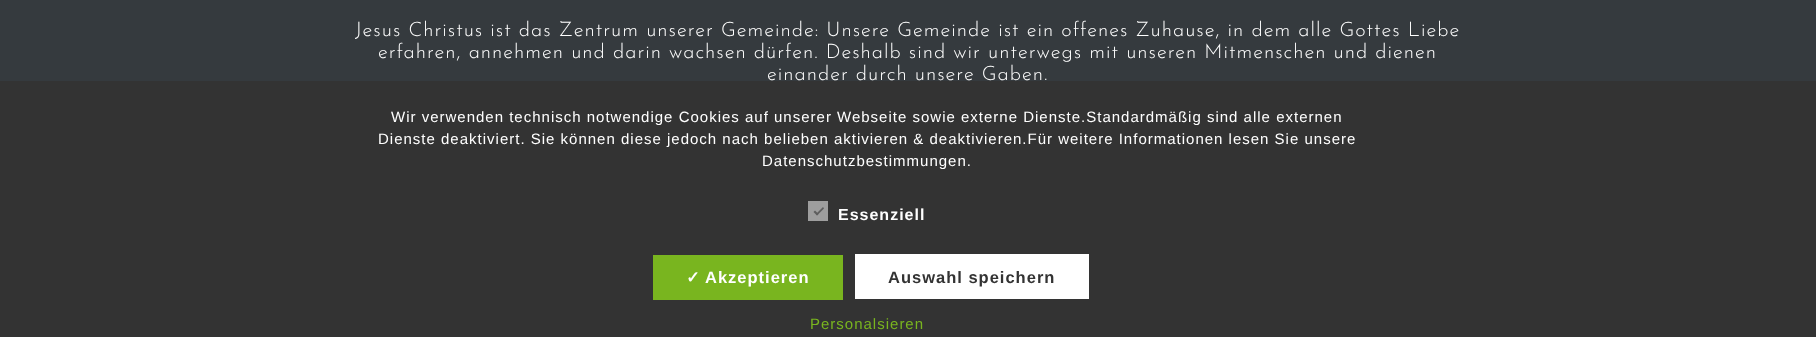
<!DOCTYPE html>
<meta charset="utf-8">
<style>body { margin: 0 } canvas { display: block }</style>
<canvas id="canvas" width="1816" height="337"></canvas>
<script type="module">
  const canvas = document.getElementById("canvas");
  const g = canvas.getContext("2d");
  g.miterLimit = 4;
  g.fontKerning = "normal";
  function drawText(s, x, y, [font, color]) {
    g.font = font;
    g.fillStyle = color;
    g.fillText(s, x, y);
  }
  function fillBox(x, y, w, h, color) {
    g.fillStyle = color;
    g.fillRect(x, y, w, h);
  }

  const s1 = ["100 20px Josefin Sans", "#FFFFFF"];
  const s2 = ["15px Liberation Sans", "#FFFFFF"];
  const s3 = ["bold 16px Liberation Sans", "#FFFFFF"];
  const s4 = ["bold 16.5px DejaVu Sans", "#FFFFFF"];
  const s5 = ["bold 16.5px Liberation Sans", "#FFFFFF"];
  const s6 = ["bold 16.5px Liberation Sans", "#333333"];
  const s7 = ["15px Liberation Sans", "#79B51F"];

  fillBox(0, 0, 1816, 337, "#353A3E");
  g.letterSpacing = "1px";
  drawText("Jesus Christus ist das Zentrum unserer Gemeinde: Unsere Gemeinde ist ein offenes Zuhause, in dem alle Gottes Liebe", 355, 36, s1);
  drawText("erfahren, annehmen und darin wachsen dürfen. Deshalb sind wir unterwegs mit unseren Mitmenschen und dienen", 378, 58, s1);
  drawText("einander durch unsere Gaben.", 767, 80, s1);
  fillBox(0, 81, 1816, 256, "#333333");
  drawText("Wir verwenden technisch notwendige Cookies auf unserer Webseite sowie externe Dienste.Standardmäßig sind alle externen", 391, 122, s2);
  drawText("Dienste deaktiviert. Sie können diese jedoch nach belieben aktivieren & deaktivieren.Für weitere Informationen lesen Sie unsere", 378, 144, s2);
  drawText("Datenschutzbestimmungen.", 762, 166, s2);
  fillBox(808, 201, 20, 20, "#9E9E9E");
  g.fillStyle = "#5E5E5E";
  g.beginPath();
  g.moveTo(823, 207);
  g.lineTo(824, 208.5);
  g.lineTo(817, 215.5);
  g.lineTo(816, 214);
  g.closePath();
  g.fill();
  g.beginPath();
  g.moveTo(815, 210.5);
  g.lineTo(818.5, 214);
  g.lineTo(817, 215.5);
  g.lineTo(813.5, 212);
  g.closePath();
  g.fill();
  drawText("Essenziell", 838, 220, s3);
  fillBox(653, 255, 190, 45, "#79B51F");
  drawText("✓", 686, 283, s4);
  drawText("Akzeptieren", 705, 283, s5);
  fillBox(855, 254, 234, 45, "#FFFFFF");
  drawText("Auswahl speichern", 888, 283, s6);
  drawText("Personalsieren", 810, 329, s7);
</script>
